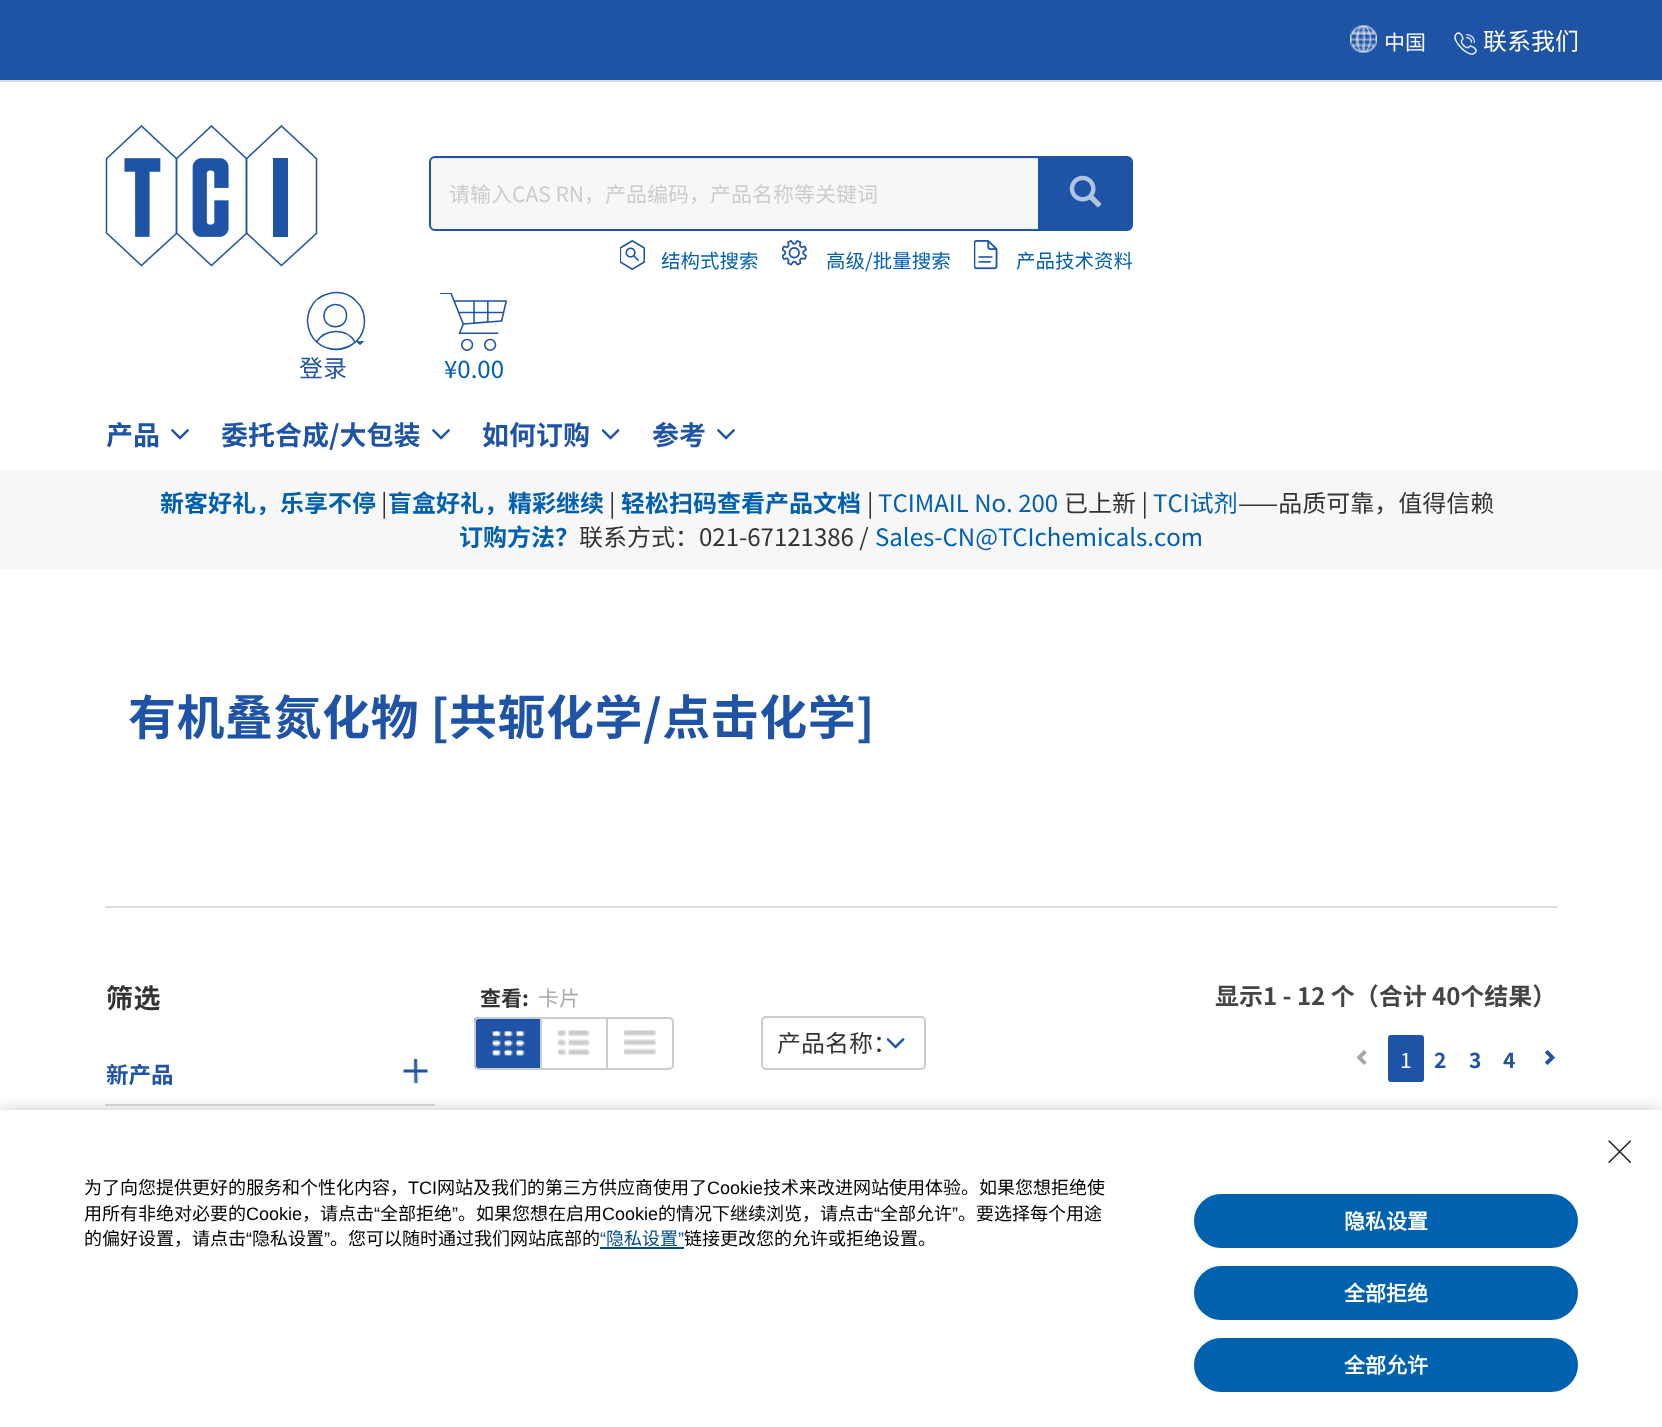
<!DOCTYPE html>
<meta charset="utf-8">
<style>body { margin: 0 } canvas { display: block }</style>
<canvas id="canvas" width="1662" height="1427"></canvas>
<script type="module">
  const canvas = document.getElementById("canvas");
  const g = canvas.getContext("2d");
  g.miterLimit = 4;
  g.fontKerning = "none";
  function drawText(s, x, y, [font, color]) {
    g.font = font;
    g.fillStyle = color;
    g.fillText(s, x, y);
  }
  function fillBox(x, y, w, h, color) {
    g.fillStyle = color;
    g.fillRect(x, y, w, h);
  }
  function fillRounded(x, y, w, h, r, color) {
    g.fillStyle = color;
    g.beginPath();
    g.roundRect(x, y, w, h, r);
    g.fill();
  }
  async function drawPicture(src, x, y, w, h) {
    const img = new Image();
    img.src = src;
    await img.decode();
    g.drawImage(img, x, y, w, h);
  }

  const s1 = ["21px Noto Sans SC", "#FFFFFF"];
  const s2 = ["24px Noto Sans SC", "#FFFFFF"];
  const s3 = ["21px Noto Sans SC", "#CCCCCC"];
  const s4 = ["19.5px Noto Sans SC", "#0060AF"];
  const s5 = ["24px Noto Sans SC", "#1E53A5"];
  const s6 = ["24px Noto Sans SC", "#0060AF"];
  const s7 = ["bold 27px Noto Sans SC", "#1E53A5"];
  const s8 = ["bold 24px Noto Sans SC", "#0060AF"];
  const s9 = ["24px Noto Sans SC", "#333333"];
  const s10 = ["bold 48px Noto Sans SC", "#1E53A5"];
  const s11 = ["bold 27px Noto Sans SC", "#333333"];
  const s12 = ["bold 22.5px Noto Sans SC", "#1E53A5"];
  const s13 = ["bold 21px Noto Sans SC", "#333333"];
  const s14 = ["21px Noto Sans SC", "#AAAAAA"];
  const s15 = ["bold 24px Noto Sans SC", "#454545"];
  const s16 = ["bold 21px Noto Sans SC", "#1E53A5"];
  const s17 = ["18px Noto Sans CJK SC", "#000000"];
  const s18 = ["18px Liberation Sans", "#000000"];
  const s19 = ["18px Liberation Sans", "#004D8A"];
  const s20 = ["18px Noto Sans CJK SC", "#004D8A"];
  const s21 = ["bold 21px Noto Sans CJK SC", "#FFFFFF"];

  fillBox(0, 0, 1662, 1427, "#FFFFFF");
  fillBox(0, 0, 1662, 80, "#1E53A5");
  await drawPicture("pic1.png", 1350, 25, 27, 28);
  drawText("中国", 1384, 50, s1);
  await drawPicture("pic2.png", 1454, 32, 23, 23);
  drawText("联系我们", 1483, 50, s2);
  fillBox(0, 80, 1662, 2, "#D9D9D9");
  await drawPicture("pic3.png", 105, 125, 213, 142);
  g.fillStyle = "#F7F7F7";
  g.beginPath();
  g.roundRect(429, 156, 611, 75, [6, 0, 0, 6]);
  g.fill();
  g.fillStyle = "#E4E4E4";
  g.beginPath();
  g.moveTo(435, 159);
  g.lineTo(1038, 159);
  g.lineTo(1038, 158);
  g.lineTo(436, 158);
  g.bezierCurveTo(434, 158, 433, 159, 432, 160);
  g.closePath();
  g.fill();
  g.beginPath();
  g.roundRect(430, 157, 609, 73, [5, 0, 0, 5]);
  g.strokeStyle = "#1E53A5";
  g.lineWidth = 2;
  g.stroke();
  drawText("请输入CAS RN，产品编码，产品名称等关键词", 449, 202, s3);
  g.fillStyle = "#1E53A5";
  g.beginPath();
  g.roundRect(1040, 156, 93, 75, [0, 6, 6, 0]);
  g.fill();
  await drawPicture("pic4.png", 1069, 175, 33, 33);
  await drawPicture("pic5.png", 620, 240, 25, 30);
  drawText("结构式搜索", 661, 268, s4);
  await drawPicture("pic6.png", 782, 240, 25, 26);
  drawText("高级/批量搜索", 826, 268, s4);
  await drawPicture("pic7.png", 974, 240, 24, 30);
  drawText("产品技术资料", 1016, 268, s4);
  g.beginPath();
  g.moveTo(355, 342);
  g.bezierCurveTo(347, 327.5, 325, 328.5, 316.5, 342);
  g.bezierCurveTo(327.5, 351.5, 344.5, 352.5, 355, 342);
  g.closePath();
  g.moveTo(346.5, 315.5);
  g.bezierCurveTo(346.5, 301, 325, 300.5, 324, 315.5);
  g.bezierCurveTo(323.5, 330, 346.5, 331, 346.5, 315.5);
  g.closePath();
  g.moveTo(364.5, 321);
  g.bezierCurveTo(364.5, 357, 309.5, 360, 307.5, 321);
  g.bezierCurveTo(307.5, 317.5, 308.5, 313.5, 309.5, 310);
  g.bezierCurveTo(317, 292, 342, 286.5, 356, 301);
  g.bezierCurveTo(361.5, 306, 364.5, 313.5, 364.5, 321);
  g.closePath();
  g.lineWidth = 1.5;
  g.stroke();
  await drawPicture("pic8.png", 356, 341, 9, 4);
  drawText("登录", 299, 377, s5);
  await drawPicture("pic9.png", 440, 293, 67, 58);
  drawText("¥0.00", 444, 378, s6);
  drawText("产品", 106, 445, s7);
  await drawPicture("pic10.png", 171, 429, 18, 11);
  drawText("委托合成/大包装", 221, 445, s7);
  await drawPicture("pic10.png", 432, 429, 18, 11);
  drawText("如何订购", 482, 445, s7);
  await drawPicture("pic11.png", 602, 429, 18, 11);
  drawText("参考", 652, 445, s7);
  await drawPicture("pic10.png", 717, 429, 18, 11);
  fillBox(0, 470, 1662, 99, "#F7F7F7");
  drawText("新客好礼，乐享不停", 160, 512, s8);
  drawText("|", 381, 512, s9);
  drawText("盲盒好礼，精彩继续", 388, 512, s8);
  drawText("|", 609, 512, s9);
  drawText("轻松扫码查看产品文档", 621, 512, s8);
  drawText("|", 867, 512, s9);
  drawText("TCIMAIL No. 200", 878, 512, s6);
  drawText("已上新 |", 1064, 512, s9);
  drawText("TCI试剂", 1153, 512, s6);
  drawText("——品质可靠，值得信赖", 1238, 512, s9);
  drawText("订购方法？", 459, 546, s8);
  drawText("联系方式：021-67121386 /", 579, 546, s9);
  drawText("Sales-CN@TCIchemicals.com", 875, 546, s6);
  g.letterSpacing = "0.5px";
  drawText("有机叠氮化物 [共轭化学/点击化学]", 128, 735, s10);
  fillBox(105, 906, 1452, 2, "#DDDDDD");
  drawText("筛选", 106, 1008, s11);
  fillBox(105, 1104, 330, 2, "#DDDDDD");
  g.letterSpacing = "0px";
  drawText("新产品", 106, 1083, s12);
  await drawPicture("pic12.png", 403, 1059, 25, 25);
  drawText("查看:", 480, 1006, s13);
  drawText("卡片", 538, 1006, s14);
  await drawPicture("pic13.png", 474, 1017, 66, 53);
  g.beginPath();
  g.roundRect(475, 1018, 66, 51, [4, 0, 0, 4]);
  g.strokeStyle = "#CCCCCC";
  g.lineWidth = 2;
  g.stroke();
  await drawPicture("pic14.png", 558, 1030, 32, 26);
  g.strokeRect(541, 1018, 66, 51);
  await drawPicture("pic15.png", 624, 1030, 32, 25);
  g.beginPath();
  g.roundRect(607, 1018, 66, 51, [0, 4, 4, 0]);
  g.stroke();
  g.beginPath();
  g.roundRect(762, 1017, 163, 52, 4);
  g.stroke();
  drawText("产品名称：", 777, 1052, s9);
  await drawPicture("pic11.png", 887, 1038, 18, 11);
  drawText("显示1 - 12 个（合计 40个结果）", 1215, 1005, s15);
  await drawPicture("pic16.png", 1356, 1050, 11, 15);
  fillRounded(1388, 1035, 36, 47, 3, "#1E53A5");
  drawText("1", 1400, 1068, s1);
  drawText("2", 1434, 1068, s16);
  drawText("3", 1469, 1068, s16);
  drawText("4", 1503, 1068, s16);
  await drawPicture("pic17.png", 1544, 1050, 11, 15);
  g.fillStyle = "rgba(0, 0, 0, 0.5)";
  g.filter = "blur(11px)";
  g.beginPath();
  g.rect(0, 1118, 1662, 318);
  g.fill();
  g.filter = "none";
  fillBox(0, 1110, 1662, 317, "#FFFFFF");
  await drawPicture("pic18.png", 1608, 1140, 23, 23);
  drawText("为了向您提供更好的服务和个性化内容，", 84, 1194, s17);
  drawText("TCI", 408, 1194, s18);
  drawText("网站及我们的第三方供应商使用了", 437, 1194, s17);
  drawText("Cookie", 707, 1194, s18);
  drawText("技术来改进网站使用体验。如果您想拒绝使", 763, 1194, s17);
  drawText("用所有非绝对必要的", 84, 1220, s17);
  drawText("Cookie", 246, 1220, s18);
  drawText("，请点击", 302, 1220, s17);
  drawText("“", 374, 1220, s18);
  drawText("全部拒绝", 380, 1220, s17);
  drawText("”", 452, 1220, s18);
  drawText("。如果您想在启用", 458, 1220, s17);
  drawText("Cookie", 602, 1220, s18);
  drawText("的情况下继续浏览，请点击", 658, 1220, s17);
  drawText("“", 874, 1220, s18);
  drawText("全部允许", 880, 1220, s17);
  drawText("”", 952, 1220, s18);
  drawText("。要选择每个用途", 958, 1220, s17);
  drawText("的偏好设置，请点击", 84, 1245, s17);
  drawText("“", 246, 1245, s18);
  drawText("隐私设置", 252, 1245, s17);
  drawText("”", 324, 1245, s18);
  drawText("。您可以随时通过我们网站底部的", 330, 1245, s17);
  drawText("“", 600, 1245, s19);
  drawText("隐私设置", 606, 1245, s20);
  fillBox(600, 1247, 84, 2, "#004D8A");
  drawText("”", 678, 1245, s19);
  drawText("链接更改您的允许或拒绝设置。", 684, 1245, s17);
  g.fillStyle = "#0061AF";
  g.beginPath();
  g.roundRect(1195, 1195, 382, 52, 26);
  g.fill();
  g.strokeStyle = "#0061AF";
  g.stroke();
  drawText("隐私设置", 1344, 1229, s21);
  g.fillStyle = "#0061AF";
  g.beginPath();
  g.roundRect(1195, 1267, 382, 52, 26);
  g.fill();
  g.stroke();
  drawText("全部拒绝", 1344, 1301, s21);
  g.fillStyle = "#0061AF";
  g.beginPath();
  g.roundRect(1195, 1339, 382, 52, 26);
  g.fill();
  g.stroke();
  drawText("全部允许", 1344, 1373, s21);
</script>
